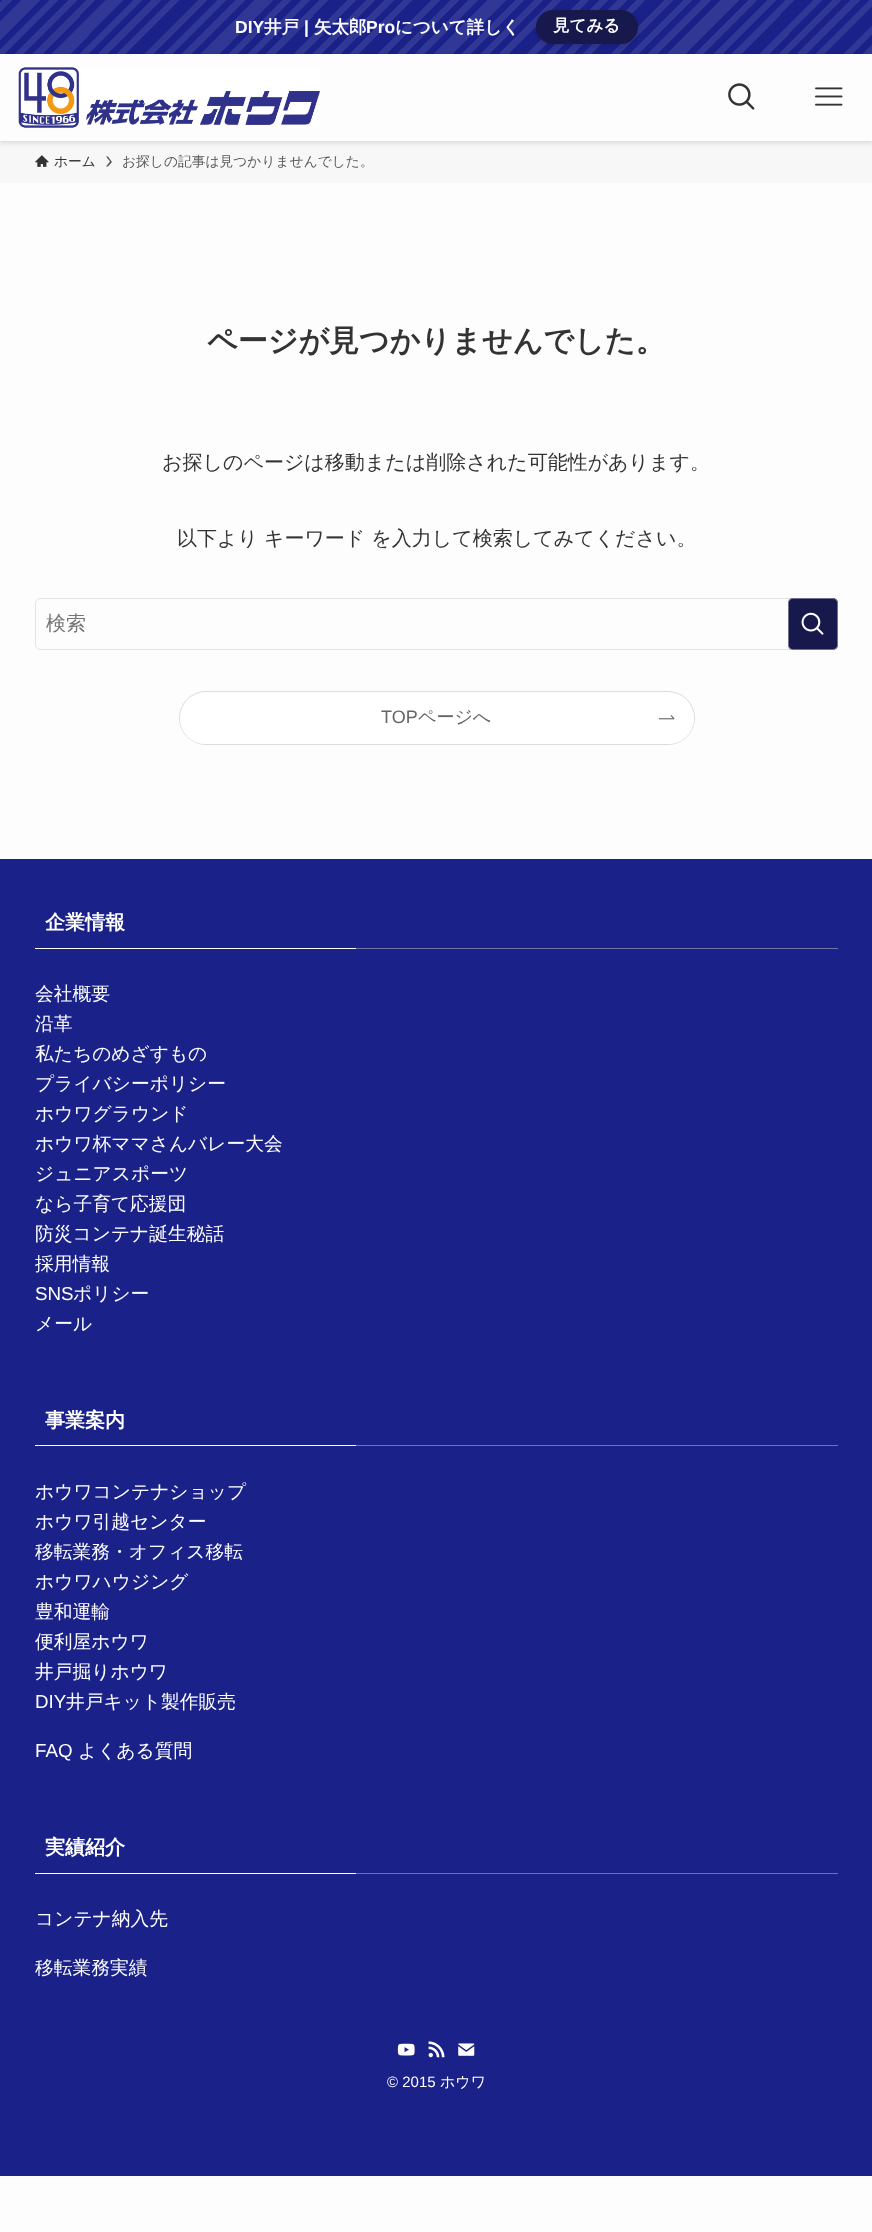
<!DOCTYPE html>
<meta charset="utf-8">
<style>body { margin: 0 } canvas { display: block }</style>
<canvas id="canvas" width="872" height="2232"></canvas>
<script type="module">
  const canvas = document.getElementById("canvas");
  const g = canvas.getContext("2d");
  g.miterLimit = 4;
  g.fontKerning = "normal";
  function drawText(s, x, y, [font, color]) {
    g.font = font;
    g.fillStyle = color;
    g.fillText(s, x, y);
  }
  function fillBox(x, y, w, h, color) {
    g.fillStyle = color;
    g.fillRect(x, y, w, h);
  }
  function fillRounded(x, y, w, h, r, color) {
    g.fillStyle = color;
    g.beginPath();
    g.roundRect(x, y, w, h, r);
    g.fill();
  }
  async function drawPicture(src, x, y, w, h) {
    const img = new Image();
    img.src = src;
    await img.decode();
    g.drawImage(img, x, y, w, h);
  }
  let gradient;

  const s1 = ["bold 17.5px Liberation Sans", "#FFFFFF"];
  const s2 = ["bold 17.5px WenQuanYi Zen Hei", "#FFFFFF"];
  const s3 = ["bold 16.5px WenQuanYi Zen Hei", "#FFFFFF"];
  const s4 = ["500 13.75px WenQuanYi Zen Hei", "#333333"];
  const s5 = ["500 13.75px WenQuanYi Zen Hei", "#5A5A5A"];
  const s6 = ["bold 30px WenQuanYi Zen Hei", "#333333"];
  const s7 = ["500 20px WenQuanYi Zen Hei", "#333333"];
  const s8 = ["500 20px WenQuanYi Zen Hei", "#757575"];
  const s9 = ["18px Liberation Sans", "#666666"];
  const s10 = ["500 18px WenQuanYi Zen Hei", "#666666"];
  const s11 = ["bold 20px WenQuanYi Zen Hei", "#FFFFFF"];
  const s12 = ["500 18.75px WenQuanYi Zen Hei", "#FFFFFF"];
  const s13 = ["18.75px Liberation Sans", "#FFFFFF"];
  const s14 = ["15px Liberation Sans", "#FFFFFF"];
  const s15 = ["500 15px WenQuanYi Zen Hei", "#FFFFFF"];

  fillBox(0, 0, 872, 2232, "#FDFDFD");
  gradient = g.createLinearGradient(668, 258, 201, -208);
  gradient.addColorStop(0, "#313794");
  gradient.addColorStop(0.01, "#313794");
  gradient.addColorStop(0.01, "#1A2188");
  gradient.addColorStop(0.02, "#1A2188");
  gradient.addColorStop(0.02, "#313794");
  gradient.addColorStop(0.03, "#313794");
  gradient.addColorStop(0.03, "#1A2188");
  gradient.addColorStop(0.05, "#1A2188");
  gradient.addColorStop(0.05, "#313794");
  gradient.addColorStop(0.06, "#313794");
  gradient.addColorStop(0.06, "#1A2188");
  gradient.addColorStop(0.07, "#1A2188");
  gradient.addColorStop(0.07, "#313794");
  gradient.addColorStop(0.08, "#313794");
  gradient.addColorStop(0.08, "#1A2188");
  gradient.addColorStop(0.09, "#1A2188");
  gradient.addColorStop(0.09, "#313794");
  gradient.addColorStop(0.1, "#313794");
  gradient.addColorStop(0.1, "#1A2188");
  gradient.addColorStop(0.11, "#1A2188");
  gradient.addColorStop(0.11, "#313794");
  gradient.addColorStop(0.12, "#313794");
  gradient.addColorStop(0.12, "#1A2188");
  gradient.addColorStop(0.14, "#1A2188");
  gradient.addColorStop(0.14, "#313794");
  gradient.addColorStop(0.15, "#313794");
  gradient.addColorStop(0.15, "#1A2188");
  gradient.addColorStop(0.16, "#1A2188");
  gradient.addColorStop(0.16, "#313794");
  gradient.addColorStop(0.17, "#313794");
  gradient.addColorStop(0.17, "#1A2188");
  gradient.addColorStop(0.18, "#1A2188");
  gradient.addColorStop(0.18, "#313794");
  gradient.addColorStop(0.19, "#313794");
  gradient.addColorStop(0.19, "#1A2188");
  gradient.addColorStop(0.2, "#1A2188");
  gradient.addColorStop(0.2, "#313794");
  gradient.addColorStop(0.22, "#313794");
  gradient.addColorStop(0.22, "#1A2188");
  gradient.addColorStop(0.23, "#1A2188");
  gradient.addColorStop(0.23, "#313794");
  gradient.addColorStop(0.24, "#313794");
  gradient.addColorStop(0.24, "#1A2188");
  gradient.addColorStop(0.25, "#1A2188");
  gradient.addColorStop(0.25, "#313794");
  gradient.addColorStop(0.26, "#313794");
  gradient.addColorStop(0.26, "#1A2188");
  gradient.addColorStop(0.27, "#1A2188");
  gradient.addColorStop(0.27, "#313794");
  gradient.addColorStop(0.28, "#313794");
  gradient.addColorStop(0.28, "#1A2188");
  gradient.addColorStop(0.3, "#1A2188");
  gradient.addColorStop(0.3, "#313794");
  gradient.addColorStop(0.31, "#313794");
  gradient.addColorStop(0.31, "#1A2188");
  gradient.addColorStop(0.32, "#1A2188");
  gradient.addColorStop(0.32, "#313794");
  gradient.addColorStop(0.33, "#313794");
  gradient.addColorStop(0.33, "#1A2188");
  gradient.addColorStop(0.34, "#1A2188");
  gradient.addColorStop(0.34, "#313794");
  gradient.addColorStop(0.35, "#313794");
  gradient.addColorStop(0.35, "#1A2188");
  gradient.addColorStop(0.36, "#1A2188");
  gradient.addColorStop(0.36, "#313794");
  gradient.addColorStop(0.37, "#313794");
  gradient.addColorStop(0.37, "#1A2188");
  gradient.addColorStop(0.39, "#1A2188");
  gradient.addColorStop(0.39, "#313794");
  gradient.addColorStop(0.4, "#313794");
  gradient.addColorStop(0.4, "#1A2188");
  gradient.addColorStop(0.41, "#1A2188");
  gradient.addColorStop(0.41, "#313794");
  gradient.addColorStop(0.42, "#313794");
  gradient.addColorStop(0.42, "#1A2188");
  gradient.addColorStop(0.43, "#1A2188");
  gradient.addColorStop(0.43, "#313794");
  gradient.addColorStop(0.44, "#313794");
  gradient.addColorStop(0.44, "#1A2188");
  gradient.addColorStop(0.45, "#1A2188");
  gradient.addColorStop(0.45, "#313794");
  gradient.addColorStop(0.47, "#313794");
  gradient.addColorStop(0.47, "#1A2188");
  gradient.addColorStop(0.48, "#1A2188");
  gradient.addColorStop(0.48, "#313794");
  gradient.addColorStop(0.49, "#313794");
  gradient.addColorStop(0.49, "#1A2188");
  gradient.addColorStop(0.5, "#1A2188");
  gradient.addColorStop(0.5, "#313794");
  gradient.addColorStop(0.51, "#313794");
  gradient.addColorStop(0.51, "#1A2188");
  gradient.addColorStop(0.52, "#1A2188");
  gradient.addColorStop(0.52, "#313794");
  gradient.addColorStop(0.53, "#313794");
  gradient.addColorStop(0.53, "#1A2188");
  gradient.addColorStop(0.55, "#1A2188");
  gradient.addColorStop(0.55, "#313794");
  gradient.addColorStop(0.56, "#313794");
  gradient.addColorStop(0.56, "#1A2188");
  gradient.addColorStop(0.57, "#1A2188");
  gradient.addColorStop(0.57, "#313794");
  gradient.addColorStop(0.58, "#313794");
  gradient.addColorStop(0.58, "#1A2188");
  gradient.addColorStop(0.59, "#1A2188");
  gradient.addColorStop(0.59, "#313794");
  gradient.addColorStop(0.6, "#313794");
  gradient.addColorStop(0.6, "#1A2188");
  gradient.addColorStop(0.61, "#1A2188");
  gradient.addColorStop(0.61, "#313794");
  gradient.addColorStop(0.62, "#313794");
  gradient.addColorStop(0.62, "#1A2188");
  gradient.addColorStop(0.64, "#1A2188");
  gradient.addColorStop(0.64, "#313794");
  gradient.addColorStop(0.65, "#313794");
  gradient.addColorStop(0.65, "#1A2188");
  gradient.addColorStop(0.66, "#1A2188");
  gradient.addColorStop(0.66, "#313794");
  gradient.addColorStop(0.67, "#313794");
  gradient.addColorStop(0.67, "#1A2188");
  gradient.addColorStop(0.68, "#1A2188");
  gradient.addColorStop(0.68, "#313794");
  gradient.addColorStop(0.69, "#313794");
  gradient.addColorStop(0.69, "#1A2188");
  gradient.addColorStop(0.7, "#1A2188");
  gradient.addColorStop(0.7, "#313794");
  gradient.addColorStop(0.72, "#313794");
  gradient.addColorStop(0.72, "#1A2188");
  gradient.addColorStop(0.73, "#1A2188");
  gradient.addColorStop(0.73, "#313794");
  gradient.addColorStop(0.74, "#313794");
  gradient.addColorStop(0.74, "#1A2188");
  gradient.addColorStop(0.75, "#1A2188");
  gradient.addColorStop(0.75, "#313794");
  gradient.addColorStop(0.76, "#313794");
  gradient.addColorStop(0.76, "#1A2188");
  gradient.addColorStop(0.77, "#1A2188");
  gradient.addColorStop(0.77, "#313794");
  gradient.addColorStop(0.78, "#313794");
  gradient.addColorStop(0.78, "#1A2188");
  gradient.addColorStop(0.8, "#1A2188");
  gradient.addColorStop(0.8, "#313794");
  gradient.addColorStop(0.81, "#313794");
  gradient.addColorStop(0.81, "#1A2188");
  gradient.addColorStop(0.82, "#1A2188");
  gradient.addColorStop(0.82, "#313794");
  gradient.addColorStop(0.83, "#313794");
  gradient.addColorStop(0.83, "#1A2188");
  gradient.addColorStop(0.84, "#1A2188");
  gradient.addColorStop(0.84, "#313794");
  gradient.addColorStop(0.85, "#313794");
  gradient.addColorStop(0.85, "#1A2188");
  gradient.addColorStop(0.86, "#1A2188");
  gradient.addColorStop(0.86, "#313794");
  gradient.addColorStop(0.88, "#313794");
  gradient.addColorStop(0.88, "#1A2188");
  gradient.addColorStop(0.89, "#1A2188");
  gradient.addColorStop(0.89, "#313794");
  gradient.addColorStop(0.9, "#313794");
  gradient.addColorStop(0.9, "#1A2188");
  gradient.addColorStop(0.91, "#1A2188");
  gradient.addColorStop(0.91, "#313794");
  gradient.addColorStop(0.92, "#313794");
  gradient.addColorStop(0.92, "#1A2188");
  gradient.addColorStop(0.93, "#1A2188");
  gradient.addColorStop(0.93, "#313794");
  gradient.addColorStop(0.94, "#313794");
  gradient.addColorStop(0.94, "#1A2188");
  gradient.addColorStop(0.95, "#1A2188");
  gradient.addColorStop(0.95, "#313794");
  gradient.addColorStop(0.97, "#313794");
  gradient.addColorStop(0.97, "#1A2188");
  gradient.addColorStop(0.98, "#1A2188");
  gradient.addColorStop(0.98, "#313794");
  gradient.addColorStop(0.99, "#313794");
  gradient.addColorStop(0.99, "#1A2188");
  gradient.addColorStop(1, "#1A2188");
  g.fillStyle = gradient;
  g.fillRect(0, 0, 872, 54);
  drawText("DIY", 235, 33, s1);
  drawText("井戸", 264, 33, s2);
  drawText("|", 304, 33, s1);
  drawText("矢太郎", 314, 33, s2);
  drawText("Pro", 366, 33, s1);
  drawText("について詳しく", 395, 33, s2);
  g.fillStyle = "rgba(0, 0, 0, 0.12)";
  g.filter = "blur(2.5px)";
  g.beginPath();
  g.roundRect(536, 13, 102, 33, 16.5);
  g.fill();
  g.filter = "none";
  fillRounded(536, 10, 102, 34, 17, "#17184B");
  drawText("見てみる", 553, 31, s3);
  fillBox(0, 141, 872, 42, "#F7F7F7");
  g.save();
  g.beginPath();
  g.moveTo(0, 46);
  g.lineTo(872, 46);
  g.lineTo(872, 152);
  g.lineTo(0, 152);
  g.closePath();
  g.moveTo(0, 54);
  g.lineTo(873, 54);
  g.lineTo(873, 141);
  g.lineTo(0, 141);
  g.closePath();
  g.clip("evenodd");
  g.fillStyle = "rgba(0, 0, 0, 0.12)";
  g.filter = "blur(2.5px)";
  g.beginPath();
  g.rect(0, 55, 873, 88);
  g.fill();
  g.filter = "none";
  g.restore();
  await drawPicture("pic1.png", 18, 67, 302, 61);
  await drawPicture("pic2.png", 728, 83, 27, 27);
  await drawPicture("pic3.png", 815, 87, 28, 19);
  await drawPicture("pic4.png", 35, 155, 14, 12);
  drawText("ホーム", 54, 166, s4);
  g.fillStyle = "#5A5A5A";
  g.beginPath();
  g.moveTo(108, 156.5);
  g.lineTo(106, 156.5);
  g.lineTo(110, 161.5);
  g.lineTo(106, 166.5);
  g.lineTo(108, 166.5);
  g.lineTo(112, 162);
  g.closePath();
  g.fill();
  drawText("お探しの記事は見つかりませんでした。", 122, 166, s5);
  drawText("ページが見つかりませんでした。", 207, 351, s6);
  drawText("お探しのページは移動または削除された可能性があります。", 162, 469, s7);
  drawText("以下より キーワード を入力して検索してみてください。", 177, 545, s7);
  g.beginPath();
  g.roundRect(35.5, 598.5, 802, 51, 4.5);
  g.strokeStyle = "#E3E3E3";
  g.stroke();
  drawText("検索", 46, 630, s8);
  fillRounded(788, 598, 50, 52, 5, "#17184B");
  g.beginPath();
  g.roundRect(788.5, 598.5, 49, 51, 4.5);
  g.strokeStyle = "rgba(199, 199, 199, 0.5)";
  g.stroke();
  await drawPicture("pic5.png", 801, 612, 23, 23);
  g.beginPath();
  g.roundRect(179.5, 691.5, 515, 53, 26.5);
  g.strokeStyle = "#DCDCDC";
  g.stroke();
  fillRounded(180, 693, 514, 51, 25.5, "#FFFFFF");
  drawText("TOP", 381, 723, s9);
  drawText("ページへ", 418, 723, s10);
  await drawPicture("pic6.png", 659, 715, 16, 5);
  fillBox(0, 859, 872, 1317, "#1A2188");
  drawText("企業情報", 45, 929, s11);
  fillBox(35, 948, 321, 1, "#FFFFFF");
  fillBox(356, 948, 482, 1, "#7174A8");
  drawText("会社概要", 35, 1000, s12);
  drawText("沿革", 35, 1030, s12);
  drawText("私たちのめざすもの", 35, 1060, s12);
  drawText("プライバシーポリシー", 35, 1090, s12);
  drawText("ホウワグラウンド", 35, 1120, s12);
  drawText("ホウワ杯ママさんバレー大会", 35, 1150, s12);
  drawText("ジュニアスポーツ", 35, 1180, s12);
  drawText("なら子育て応援団", 35, 1210, s12);
  drawText("防災コンテナ誕生秘話", 35, 1240, s12);
  drawText("採用情報", 35, 1270, s12);
  drawText("SNS", 35, 1300, s13);
  drawText("ポリシー", 73, 1300, s12);
  drawText("メール", 35, 1330, s12);
  drawText("事業案内", 45, 1427, s11);
  fillBox(35, 1445, 321, 1, "#FFFFFF");
  fillBox(356, 1445, 482, 1, "#7174A8");
  drawText("ホウワコンテナショップ", 35, 1498, s12);
  drawText("ホウワ引越センター", 35, 1528, s12);
  drawText("移転業務・オフィス移転", 35, 1558, s12);
  drawText("ホウワハウジング", 35, 1588, s12);
  drawText("豊和運輸", 35, 1618, s12);
  drawText("便利屋ホウワ", 35, 1648, s12);
  drawText("井戸掘りホウワ", 35, 1678, s12);
  drawText("DIY", 35, 1708, s13);
  drawText("井戸キット製作販売", 66, 1708, s12);
  drawText("FAQ", 35, 1757, s13);
  drawText("よくある質問", 78, 1757, s12);
  drawText("実績紹介", 45, 1854, s11);
  fillBox(35, 1873, 321, 1, "#FFFFFF");
  fillBox(356, 1873, 482, 1, "#7174A8");
  drawText("コンテナ納入先", 35, 1925, s12);
  drawText("移転業務実績", 35, 1974, s12);
  await drawPicture("pic7.png", 397, 2043, 18, 13);
  await drawPicture("pic8.png", 428, 2041, 17, 17);
  await drawPicture("pic9.png", 458, 2043, 17, 13);
  drawText("© 2015", 387, 2087, s14);
  drawText("ホウワ", 440, 2087, s15);
</script>
